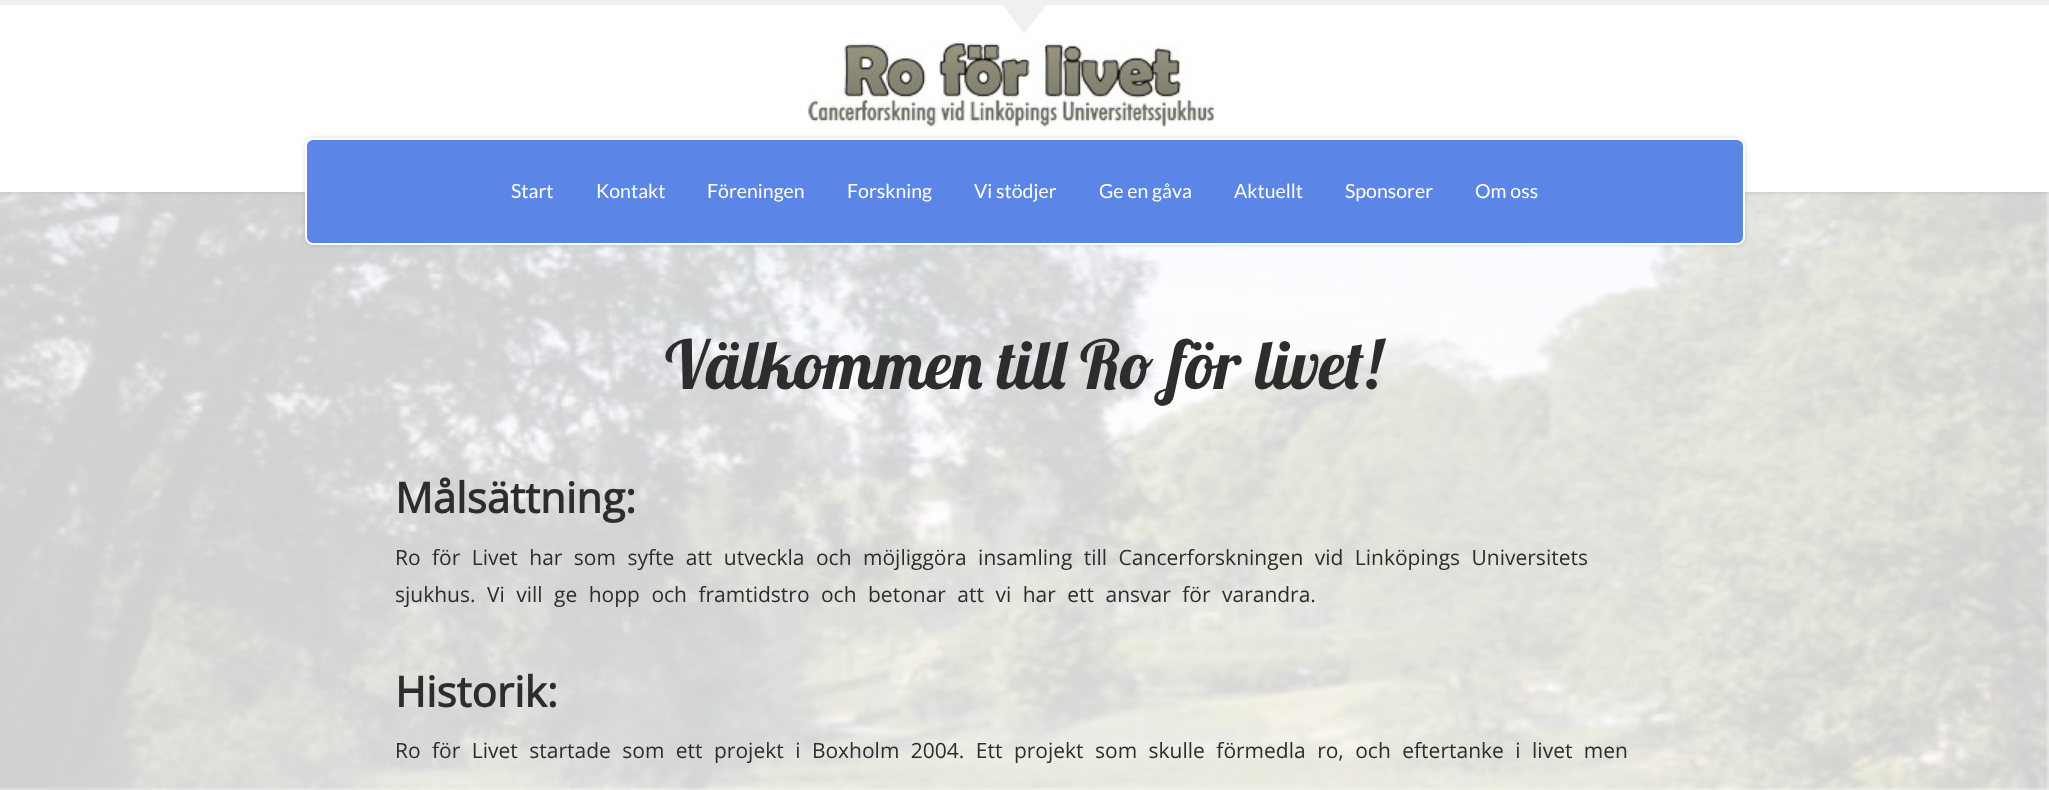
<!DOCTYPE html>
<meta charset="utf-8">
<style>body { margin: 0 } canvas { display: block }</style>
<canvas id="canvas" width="2049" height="790"></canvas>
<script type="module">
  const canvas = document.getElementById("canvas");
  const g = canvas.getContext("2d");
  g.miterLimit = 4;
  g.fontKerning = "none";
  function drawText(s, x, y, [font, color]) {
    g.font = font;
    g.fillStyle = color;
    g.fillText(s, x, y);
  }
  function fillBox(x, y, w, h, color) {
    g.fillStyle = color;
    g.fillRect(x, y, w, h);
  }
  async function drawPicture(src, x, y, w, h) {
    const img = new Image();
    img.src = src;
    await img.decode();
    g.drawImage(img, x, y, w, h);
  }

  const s1 = ["19.5px Lato", "#FFFFFF"];
  const s2 = ["67.5px Lobster", "#2D2D2D"];
  const s3 = ["bold 42px Open Sans", "#2D2D2D"];
  const s4 = ["21px Open Sans", "#2D2D2D"];

  fillBox(0, 0, 2049, 790, "#FDFDFD");
  await drawPicture("pic2.png", 0, 192, 2049, 598);
  g.fillStyle = "rgba(50, 50, 50, 0.19)";
  g.filter = "blur(2px)";
  g.beginPath();
  g.rect(0, 0, 2049, 192);
  g.fill();
  g.filter = "none";
  fillBox(0, 5, 2049, 187, "#FFFFFF");
  fillBox(0, 0, 2049, 5, "#F0F0F0");
  g.beginPath();
  g.moveTo(1002, 4);
  g.lineTo(1047, 4);
  g.lineTo(1024, 34);
  g.closePath();
  g.fill();
  await drawPicture("pic1.png", 807, 42, 407, 85);
  g.fillStyle = "rgba(50, 50, 50, 0.19)";
  g.filter = "blur(2px)";
  g.beginPath();
  g.roundRect(305, 138, 1440, 107, 8);
  g.fill();
  g.filter = "none";
  g.fillStyle = "#5B85E6";
  g.beginPath();
  g.roundRect(306, 139, 1438, 105, 7);
  g.fill();
  g.strokeStyle = "#FFFFFF";
  g.lineWidth = 2;
  g.stroke();
  drawText("Start", 511, 198, s1);
  drawText("Kontakt", 596, 198, s1);
  drawText("Föreningen", 707, 198, s1);
  drawText("Forskning", 847, 198, s1);
  drawText("Vi stödjer", 974, 198, s1);
  drawText("Ge en gåva", 1099, 198, s1);
  drawText("Aktuellt", 1234, 198, s1);
  drawText("Sponsorer", 1345, 198, s1);
  drawText("Om oss", 1475, 198, s1);
  drawText("Välkommen till Ro för livet!", 665, 389, s2);
  drawText("Målsättning:", 395, 513, s3);
  g.wordSpacing = "6px";
  drawText("Ro för Livet har som syfte att utveckla och möjliggöra insamling till Cancerforskningen vid Linköpings Universitets", 395, 565, s4);
  drawText("sjukhus. Vi vill ge hopp och framtidstro och betonar att vi har ett ansvar för varandra.", 395, 602, s4);
  g.wordSpacing = "0px";
  drawText("Historik:", 395, 707, s3);
  g.wordSpacing = "6px";
  drawText("Ro för Livet startade som ett projekt i Boxholm 2004. Ett projekt som skulle förmedla ro, och eftertanke i livet men", 395, 758, s4);
</script>
